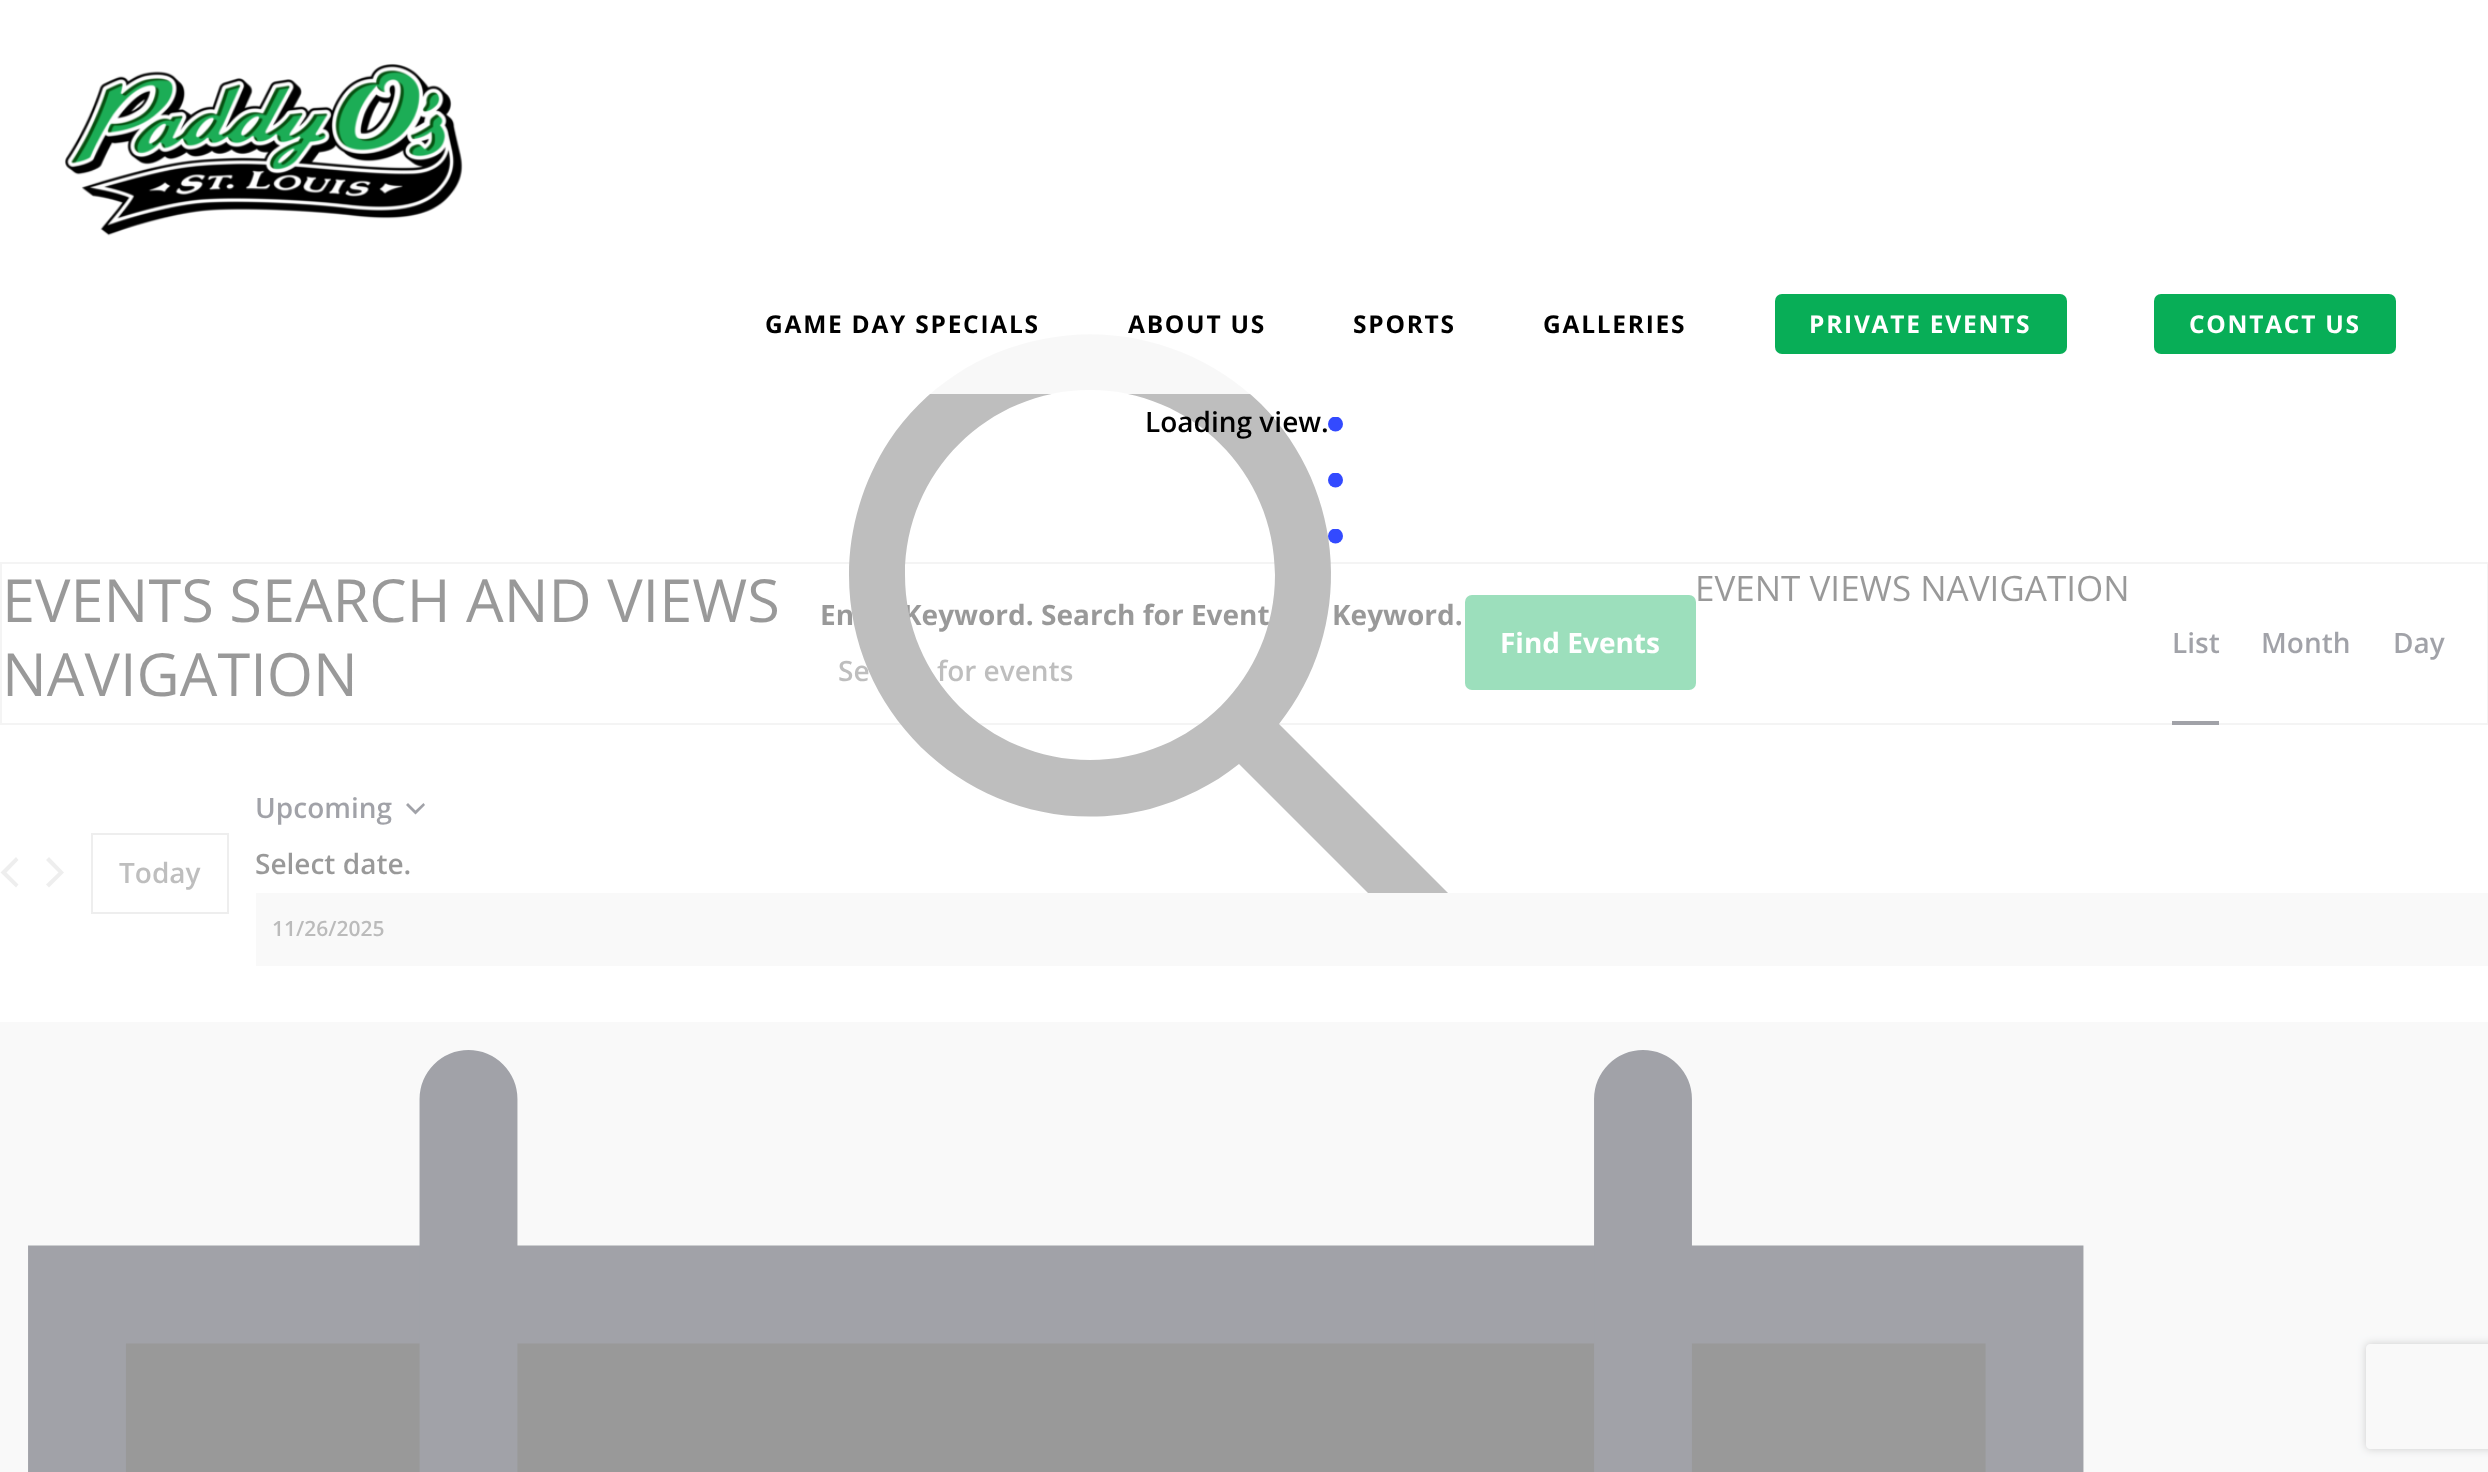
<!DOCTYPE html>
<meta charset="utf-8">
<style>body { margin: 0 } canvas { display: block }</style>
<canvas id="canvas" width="2488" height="1472"></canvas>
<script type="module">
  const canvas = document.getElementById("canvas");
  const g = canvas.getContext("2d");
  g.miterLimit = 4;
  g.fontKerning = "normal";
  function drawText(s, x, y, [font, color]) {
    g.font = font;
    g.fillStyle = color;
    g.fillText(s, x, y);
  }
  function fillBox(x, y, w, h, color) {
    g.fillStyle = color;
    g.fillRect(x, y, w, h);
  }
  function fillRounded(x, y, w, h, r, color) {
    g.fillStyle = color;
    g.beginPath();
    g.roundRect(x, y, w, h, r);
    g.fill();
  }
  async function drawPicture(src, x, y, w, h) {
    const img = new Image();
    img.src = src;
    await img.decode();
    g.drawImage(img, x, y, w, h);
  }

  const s1 = ["bold 28px Open Sans", "#000000"];
  const s2 = ["bold 24.5px Open Sans", "#000000"];
  const s3 = ["bold 24.5px Open Sans", "#FFFFFF"];
  const s4 = ["59.5px Open Sans", "#000000"];
  const s5 = ["600 28px Open Sans", "#5D5D5D"];
  const s6 = ["bold 28px Open Sans", "#FFFFFF"];
  const s7 = ["35px Open Sans", "#000000"];
  const s8 = ["600 28px Open Sans", "#141827"];
  const s9 = ["600 28px Open Sans", "#000000"];
  const s10 = ["600 21px Open Sans", "#555555"];

  fillBox(0, 0, 2488, 1472, "#FFFFFF");
  g.strokeStyle = "#E4E4E4";
  g.lineWidth = 2;
  g.strokeRect(1, 563, 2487, 161);
  drawText("En", 820, 625, s1);
  drawText("Keyword. Search for Event", 903, 625, s1);
  drawText("Keyword.", 1332, 625, s1);
  g.fillStyle = "#5D5D5D";
  g.beginPath();
  g.moveTo(1279, 724);
  g.lineTo(1466, 911);
  g.lineTo(1426, 951);
  g.lineTo(1239, 764);
  g.bezierCurveTo(1213, 785, 1182, 800, 1150, 809);
  g.bezierCurveTo(997, 848, 849, 732, 849, 575);
  g.bezierCurveTo(849, 528, 863, 481, 889, 441);
  g.bezierCurveTo(924, 388, 980, 351, 1043, 339);
  g.bezierCurveTo(1121, 323, 1204, 348, 1261, 404);
  g.bezierCurveTo(1347, 491, 1355, 629, 1279, 724);
  g.closePath();
  g.moveTo(1090, 390);
  g.bezierCurveTo(988, 390, 905, 472, 905, 575);
  g.bezierCurveTo(905, 678, 988, 760, 1090, 760);
  g.bezierCurveTo(1192, 760, 1275, 678, 1275, 575);
  g.bezierCurveTo(1275, 472, 1191, 390, 1090, 390);
  g.closePath();
  g.fill("evenodd");
  fillBox(930, 334, 320, 60, "rgba(255, 255, 255, 0.96)");
  await drawPicture("pic1.png", 64, 63, 399, 173);
  g.letterSpacing = "1.75px";
  drawText("GAME DAY SPECIALS", 765, 333, s2);
  drawText("ABOUT US", 1128, 333, s2);
  drawText("SPORTS", 1353, 333, s2);
  drawText("GALLERIES", 1543, 333, s2);
  fillRounded(1775, 294, 292, 60, 7, "#08AE57");
  drawText("PRIVATE EVENTS", 1809, 333, s3);
  fillRounded(2154, 294, 242, 60, 7, "#08AE57");
  drawText("CONTACT US", 2189, 333, s3);
  g.letterSpacing = "0px";
  drawText("EVENTS SEARCH AND VIEWS", 2, 622, s4);
  drawText("NAVIGATION", 2, 696, s4);
  drawText("Se", 838, 681, s5);
  drawText("for events", 937, 681, s5);
  fillRounded(1465, 595, 231, 95, 7, "#08AE57");
  drawText("Find Events", 1500, 653, s6);
  drawText("EVENT VIEWS NAVIGATION", 1695, 601, s7);
  drawText("List", 2172, 653, s8);
  fillBox(2172, 721, 47, 4, "#141827");
  drawText("Month", 2261, 653, s8);
  drawText("Day", 2393, 653, s8);
  g.fillStyle = "#D5D5D5";
  g.beginPath();
  g.moveTo(18.5, 884.5);
  g.lineTo(16, 887.5);
  g.lineTo(0.5, 872.5);
  g.lineTo(16, 857);
  g.lineTo(18.5, 860);
  g.lineTo(6.5, 872.5);
  g.closePath();
  g.fill();
  g.beginPath();
  g.moveTo(46, 860);
  g.lineTo(49, 857);
  g.lineTo(64, 872.5);
  g.lineTo(49, 887.5);
  g.lineTo(46, 884.5);
  g.lineTo(58.5, 872.5);
  g.closePath();
  g.fill();
  g.strokeStyle = "#D5D5D5";
  g.strokeRect(92, 834, 136, 79);
  drawText("Today", 119, 883, s5);
  drawText("Upcoming", 255, 818, s8);
  g.beginPath();
  g.moveTo(408, 803);
  g.lineTo(415.5, 810.5);
  g.lineTo(423.5, 803);
  g.lineTo(425, 805);
  g.lineTo(415.5, 814.5);
  g.lineTo(406, 805);
  g.closePath();
  g.fill("evenodd");
  drawText("Select date.", 255, 874, s9);
  fillBox(256, 893, 2232, 73, "#EFEFEF");
  drawText("11/26/2025", 272, 936, s10);
  fillBox(0, 1022, 2488, 450, "#EFF0F1");
  fillBox(125, 1343, 1861, 129, "#000000");
  g.beginPath();
  g.moveTo(77, 1294.5);
  g.lineTo(2034.5, 1294.5);
  g.lineTo(2034.5, 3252);
  g.lineTo(77, 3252);
  g.closePath();
  g.strokeStyle = "#141827";
  g.lineWidth = 97.9;
  g.stroke();
  g.beginPath();
  g.moveTo(468.5, 1099);
  g.lineTo(468.5, 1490.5);
  g.moveTo(1643, 1099);
  g.lineTo(1643, 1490.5);
  g.lineCap = "round";
  g.stroke();
  g.save();
  g.beginPath();
  g.moveTo(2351, 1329);
  g.lineTo(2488, 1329);
  g.lineTo(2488, 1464);
  g.lineTo(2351, 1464);
  g.closePath();
  g.moveTo(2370, 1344);
  g.lineTo(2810, 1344);
  g.bezierCurveTo(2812, 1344, 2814, 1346, 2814, 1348);
  g.lineTo(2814, 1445);
  g.bezierCurveTo(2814, 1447, 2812, 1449, 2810, 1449);
  g.lineTo(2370, 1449);
  g.bezierCurveTo(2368, 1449, 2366, 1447, 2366, 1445);
  g.lineTo(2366, 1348);
  g.bezierCurveTo(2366, 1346, 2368, 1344, 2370, 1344);
  g.closePath();
  g.clip("evenodd");
  g.fillStyle = "#808080";
  g.filter = "blur(4.5px)";
  g.beginPath();
  g.roundRect(2366, 1344, 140, 105, 4);
  g.fill();
  g.filter = "none";
  g.restore();
  fillBox(0, 394, 2488, 1078, "rgba(255, 255, 255, 0.6)");
  drawText("Loading view.", 1145, 432, s9);
  g.save();
  g.beginPath();
  g.rect(1328, 417, 16, 15);
  g.clip();
  g.fillStyle = "#334AFF";
  g.beginPath();
  g.arc(1335.5, 424, 7.5, 0, Math.PI * 2);
  g.fill();
  g.restore();
  g.save();
  g.beginPath();
  g.rect(1328, 473, 16, 15);
  g.clip();
  g.fillStyle = "#334AFF";
  g.beginPath();
  g.arc(1335.5, 480, 7.5, 0, Math.PI * 2);
  g.fill();
  g.restore();
  g.save();
  g.beginPath();
  g.rect(1328, 529, 16, 15);
  g.clip();
  g.fillStyle = "#334AFF";
  g.beginPath();
  g.arc(1335.5, 536, 7.5, 0, Math.PI * 2);
  g.fill();
  g.restore();
</script>
